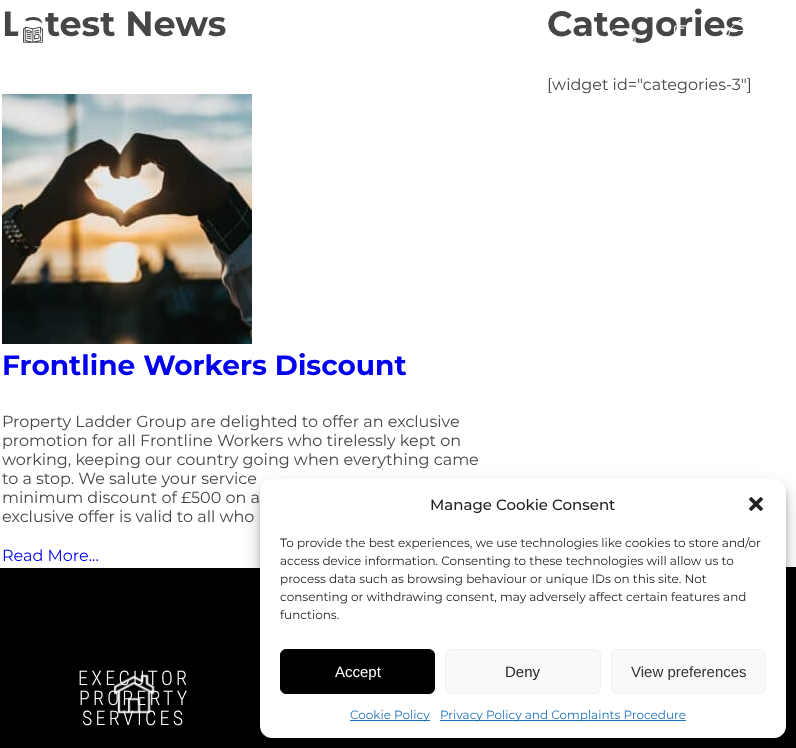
<!DOCTYPE html>
<meta charset="utf-8">
<style>body { margin: 0 } canvas { display: block }</style>
<canvas id="canvas" width="796" height="748"></canvas>
<script type="module">
  const canvas = document.getElementById("canvas");
  const g = canvas.getContext("2d");
  g.miterLimit = 4;
  g.fontKerning = "normal";
  function drawText(s, x, y, [font, color]) {
    g.font = font;
    g.fillStyle = color;
    g.fillText(s, x, y);
  }
  function fillBox(x, y, w, h, color) {
    g.fillStyle = color;
    g.fillRect(x, y, w, h);
  }
  function fillRounded(x, y, w, h, r, color) {
    g.fillStyle = color;
    g.beginPath();
    g.roundRect(x, y, w, h, r);
    g.fill();
  }
  async function drawPicture(src, x, y, w, h) {
    const img = new Image();
    img.src = src;
    await img.decode();
    g.drawImage(img, x, y, w, h);
  }

  const s1 = ["bold 35px Montserrat", "#464646"];
  const s2 = ["bold 28px Montserrat", "#0000EE"];
  const s3 = ["16px Montserrat", "#464646"];
  const s4 = ["16px Montserrat", "#0000EE"];
  const s5 = ["500 15px Montserrat", "#222222"];
  const s6 = ["12px Montserrat", "#222222"];
  const s7 = ["15px Liberation Sans", "#FFFFFF"];
  const s8 = ["15px Liberation Sans", "#222222"];
  const s9 = ["15px Liberation Sans", "#333333"];
  const s10 = ["12px Montserrat", "#1E73BE"];
  const s11 = ["300 20px Roboto Condensed", "#FFFFFF"];

  fillBox(0, 0, 796, 748, "#FFFFFF");
  drawText("Latest News", 2, 36, s1);
  await drawPicture("pic1.png", 2, 94, 250, 250);
  drawText("Frontline Workers Discount", 2, 375, s2);
  drawText("Property Ladder Group are delighted to offer an exclusive", 2, 427, s3);
  drawText("promotion for all Frontline Workers who tirelessly kept on", 2, 446, s3);
  drawText("working, keeping our country going when everything came", 2, 465, s3);
  drawText("to a stop. We salute your service", 2, 484, s3);
  drawText("minimum discount of £500 on a", 2, 503, s3);
  drawText("exclusive offer is valid to all who", 2, 522, s3);
  drawText("Read More...", 2, 561, s4);
  drawText("Categories", 547, 36, s1);
  drawText("[widget id=\"categories-3\"]", 547, 90, s3);
  fillBox(0, 567, 796, 181, "#000000");
  fillBox(0, 567, 260, 1, "#FFFFFF");
  g.fillStyle = "rgba(0, 0, 0, 0.23)";
  g.filter = "blur(3px)";
  g.beginPath();
  g.roundRect(260, 485, 526, 259, 12);
  g.fill();
  g.filter = "none";
  g.fillStyle = "rgba(0, 0, 0, 0.19)";
  g.filter = "blur(10px)";
  g.beginPath();
  g.roundRect(260, 489, 526, 259, 12);
  g.fill();
  g.filter = "none";
  fillRounded(260, 479, 526, 259, 12, "#FFFFFF");
  drawText("Manage Cookie Consent", 430, 510, s5);
  await drawPicture("pic2.png", 749, 497, 14, 14);
  drawText("To provide the best experiences, we use technologies like cookies to store and/or", 280, 547, s6);
  drawText("access device information. Consenting to these technologies will allow us to", 280, 565, s6);
  drawText("process data such as browsing behaviour or unique IDs on this site. Not", 280, 583, s6);
  drawText("consenting or withdrawing consent, may adversely affect certain features and", 280, 601, s6);
  drawText("functions.", 280, 619, s6);
  g.fillStyle = "#000000";
  g.beginPath();
  g.roundRect(280.5, 649.5, 154, 44, 5.5);
  g.fill();
  g.strokeStyle = "#000000";
  g.stroke();
  drawText("Accept", 335, 677, s7);
  g.fillStyle = "#F9F9F9";
  g.beginPath();
  g.roundRect(445.5, 649.5, 155, 44, 5.5);
  g.fill();
  g.strokeStyle = "#F2F2F2";
  g.stroke();
  drawText("Deny", 505, 677, s8);
  g.fillStyle = "#F9F9F9";
  g.beginPath();
  g.roundRect(611.5, 649.5, 154, 44, 5.5);
  g.fill();
  g.stroke();
  drawText("View preferences", 631, 677, s9);
  fillBox(350, 720, 80, 1, "#1E73BE");
  drawText("Cookie Policy", 350, 719, s10);
  fillBox(440, 720, 246, 1, "#1E73BE");
  drawText("Privacy Policy and Complaints Procedure", 440, 719, s10);
  g.fillStyle = "#FFFFFF";
  g.beginPath();
  g.arc(33, 35, 15, 0, Math.PI * 2);
  g.fill();
  await drawPicture("pic3.png", 23, 26, 20, 17);
  await drawPicture("pic4.png", 611, 29, 25, 14);
  await drawPicture("pic5.png", 673, 25, 13, 9);
  g.beginPath();
  g.arc(748, 38, 19.5, 0, Math.PI * 2);
  g.strokeStyle = "#FFFFFF";
  g.stroke();
  fillBox(738, 30, 5, 1, "#FFFFFF");
  await drawPicture("pic6.png", 114, 674, 41, 40);
  g.letterSpacing = "3.25px";
  drawText("EXECUTOR", 78, 685, s11);
  drawText("PROPERTY", 79, 705, s11);
  drawText("SERVICES", 82, 725, s11);
</script>
